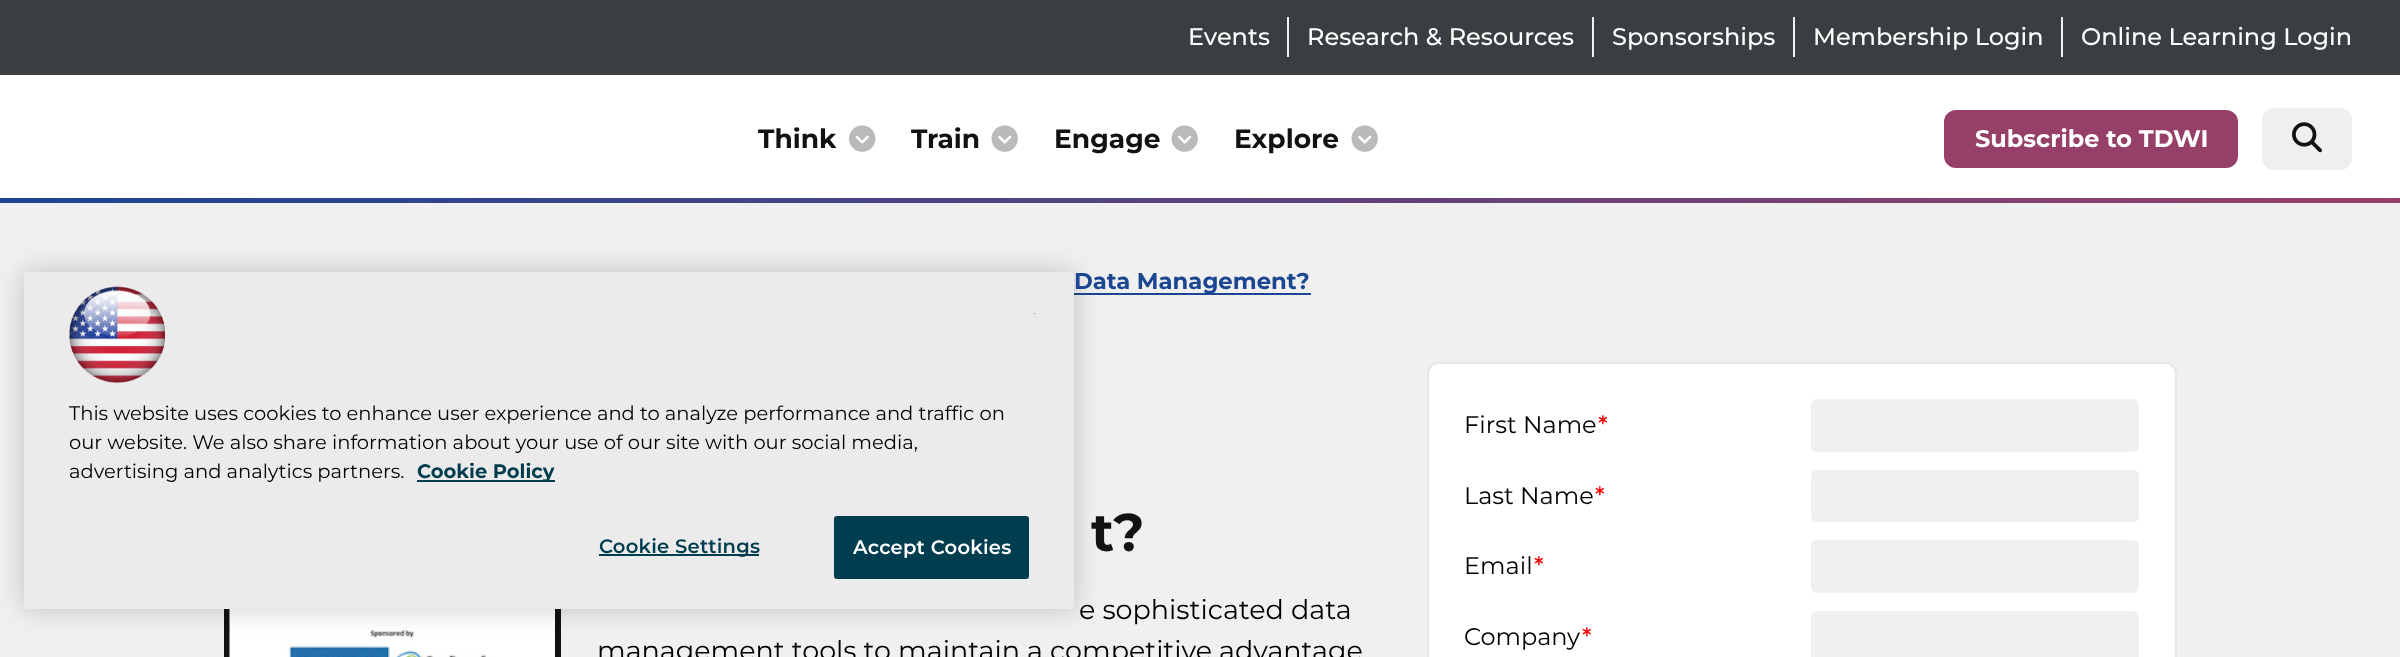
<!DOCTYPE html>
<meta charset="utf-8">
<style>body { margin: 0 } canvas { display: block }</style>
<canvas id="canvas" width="2400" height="657"></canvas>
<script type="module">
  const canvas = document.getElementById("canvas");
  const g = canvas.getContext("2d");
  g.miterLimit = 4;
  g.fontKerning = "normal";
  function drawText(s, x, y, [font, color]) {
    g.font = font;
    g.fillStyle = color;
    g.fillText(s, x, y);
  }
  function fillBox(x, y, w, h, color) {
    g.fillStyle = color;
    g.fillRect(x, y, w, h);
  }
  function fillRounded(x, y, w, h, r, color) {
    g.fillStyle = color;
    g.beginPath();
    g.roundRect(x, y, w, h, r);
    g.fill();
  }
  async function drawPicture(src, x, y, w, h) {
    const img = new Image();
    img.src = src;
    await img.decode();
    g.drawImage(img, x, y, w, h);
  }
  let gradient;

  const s1 = ["19.5px Montserrat", "#000000"];
  const s2 = ["bold 19.5px Montserrat", "#003D4F"];
  const s3 = ["600 19.5px Montserrat", "#003D4F"];
  const s4 = ["600 19.5px Montserrat", "#FFFFFF"];
  const s5 = ["500 24px Montserrat", "#FFFFFF"];
  const s6 = ["bold 26.5px Montserrat", "#121212"];
  const s7 = ["bold 24px Montserrat", "#FFFFFF"];
  const s8 = ["bold 22.75px Montserrat", "#1B4692"];
  const s9 = ["bold 53px Montserrat", "#121212"];
  const s10 = ["27px Montserrat", "#000000"];
  const s11 = ["24px Montserrat", "#000000"];
  const s12 = ["500 24px Montserrat", "#FF0000"];

  fillBox(0, 0, 2400, 657, "#F0F0F0");
  fillBox(1074, 293, 237, 2, "#1B4692");
  fillBox(224, 609, 337, 48, "#121212");
  await drawPicture("pic5.png", 229, 609, 326, 48);
  g.fillStyle = "rgba(0, 0, 0, 0.2)";
  g.filter = "blur(13.5px)";
  g.beginPath();
  g.roundRect(24, 272, 1050, 337, 4);
  g.fill();
  g.filter = "none";
  fillRounded(24, 272, 1050, 337, 4, "#EBEBEB");
  fillBox(1034, 313, 1, 1, "#898989");
  await drawPicture("pic1.png", 69, 286, 96, 97);
  drawText("This website uses cookies to enhance user experience and to analyze performance and traffic on", 69, 420, s1);
  drawText("our website. We also share information about your use of our site with our social media,", 69, 449, s1);
  drawText("advertising and analytics partners.", 69, 478, s1);
  fillBox(417, 480, 138, 2, "#003D4F");
  drawText("Cookie Policy", 417, 478, s2);
  fillBox(599, 554, 160, 2, "#003D4F");
  g.letterSpacing = "0.25px";
  drawText("Cookie Settings", 599, 553, s3);
  g.beginPath();
  g.roundRect(835, 517, 193, 61, 2);
  g.fill();
  g.strokeStyle = "#003D4F";
  g.lineWidth = 2;
  g.stroke();
  drawText("Accept Cookies", 853, 554, s4);
  fillBox(0, 0, 2400, 75, "#393E41");
  g.letterSpacing = "0px";
  drawText("Events", 1188, 45, s5);
  fillBox(1287, 17, 2, 40, "#F0F0F0");
  drawText("Research & Resources", 1307, 45, s5);
  fillBox(1592, 17, 2, 40, "#F0F0F0");
  drawText("Sponsorships", 1612, 45, s5);
  fillBox(1793, 17, 2, 40, "#F0F0F0");
  drawText("Membership Login", 1813, 45, s5);
  fillBox(2061, 17, 2, 40, "#F0F0F0");
  drawText("Online Learning Login", 2081, 45, s5);
  fillBox(0, 75, 2400, 123, "#FFFFFF");
  drawText("Think", 758, 148, s6);
  await drawPicture("pic2.png", 849, 125, 27, 27);
  drawText("Train", 911, 148, s6);
  await drawPicture("pic3.png", 991, 125, 27, 27);
  drawText("Engage", 1054, 148, s6);
  await drawPicture("pic3.png", 1171, 125, 27, 27);
  drawText("Explore", 1234, 148, s6);
  await drawPicture("pic3.png", 1351, 125, 27, 27);
  fillRounded(1944, 110, 294, 58, 12, "#964069");
  drawText("Subscribe to TDWI", 1975, 147, s7);
  fillRounded(2262, 108, 90, 62, 12, "#EFEFEF");
  await drawPicture("pic4.png", 2292, 122, 30, 31);
  gradient = g.createLinearGradient(0, 200, 2400, 200);
  gradient.addColorStop(0, "#1B4692");
  gradient.addColorStop(1, "#964069");
  g.fillStyle = gradient;
  g.fillRect(0, 198, 2400, 5);
  drawText("Data Management?", 1074, 289, s8);
  drawText("t?", 1091, 551, s9);
  drawText("e sophisticated data", 1079, 619, s10);
  drawText("management tools to maintain a competitive advantage", 597, 660, s10);
  fillRounded(1427, 362, 750, 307, 12, "#FFFFFF");
  g.beginPath();
  g.roundRect(1428, 363, 748, 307, 11);
  g.strokeStyle = "rgba(18, 18, 18, 0.1)";
  g.stroke();
  drawText("First Name", 1464, 433, s11);
  drawText("*", 1598, 433, s12);
  fillRounded(1811, 399, 328, 53, 6, "#F0F0F0");
  drawText("Last Name", 1464, 504, s11);
  drawText("*", 1595, 504, s12);
  fillRounded(1811, 470, 328, 52, 6, "#F0F0F0");
  drawText("Email", 1464, 574, s11);
  drawText("*", 1534, 574, s12);
  fillRounded(1811, 540, 328, 53, 6, "#F0F0F0");
  drawText("Company", 1464, 645, s11);
  drawText("*", 1582, 645, s12);
  fillRounded(1811, 611, 328, 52, 6, "#F0F0F0");
</script>
